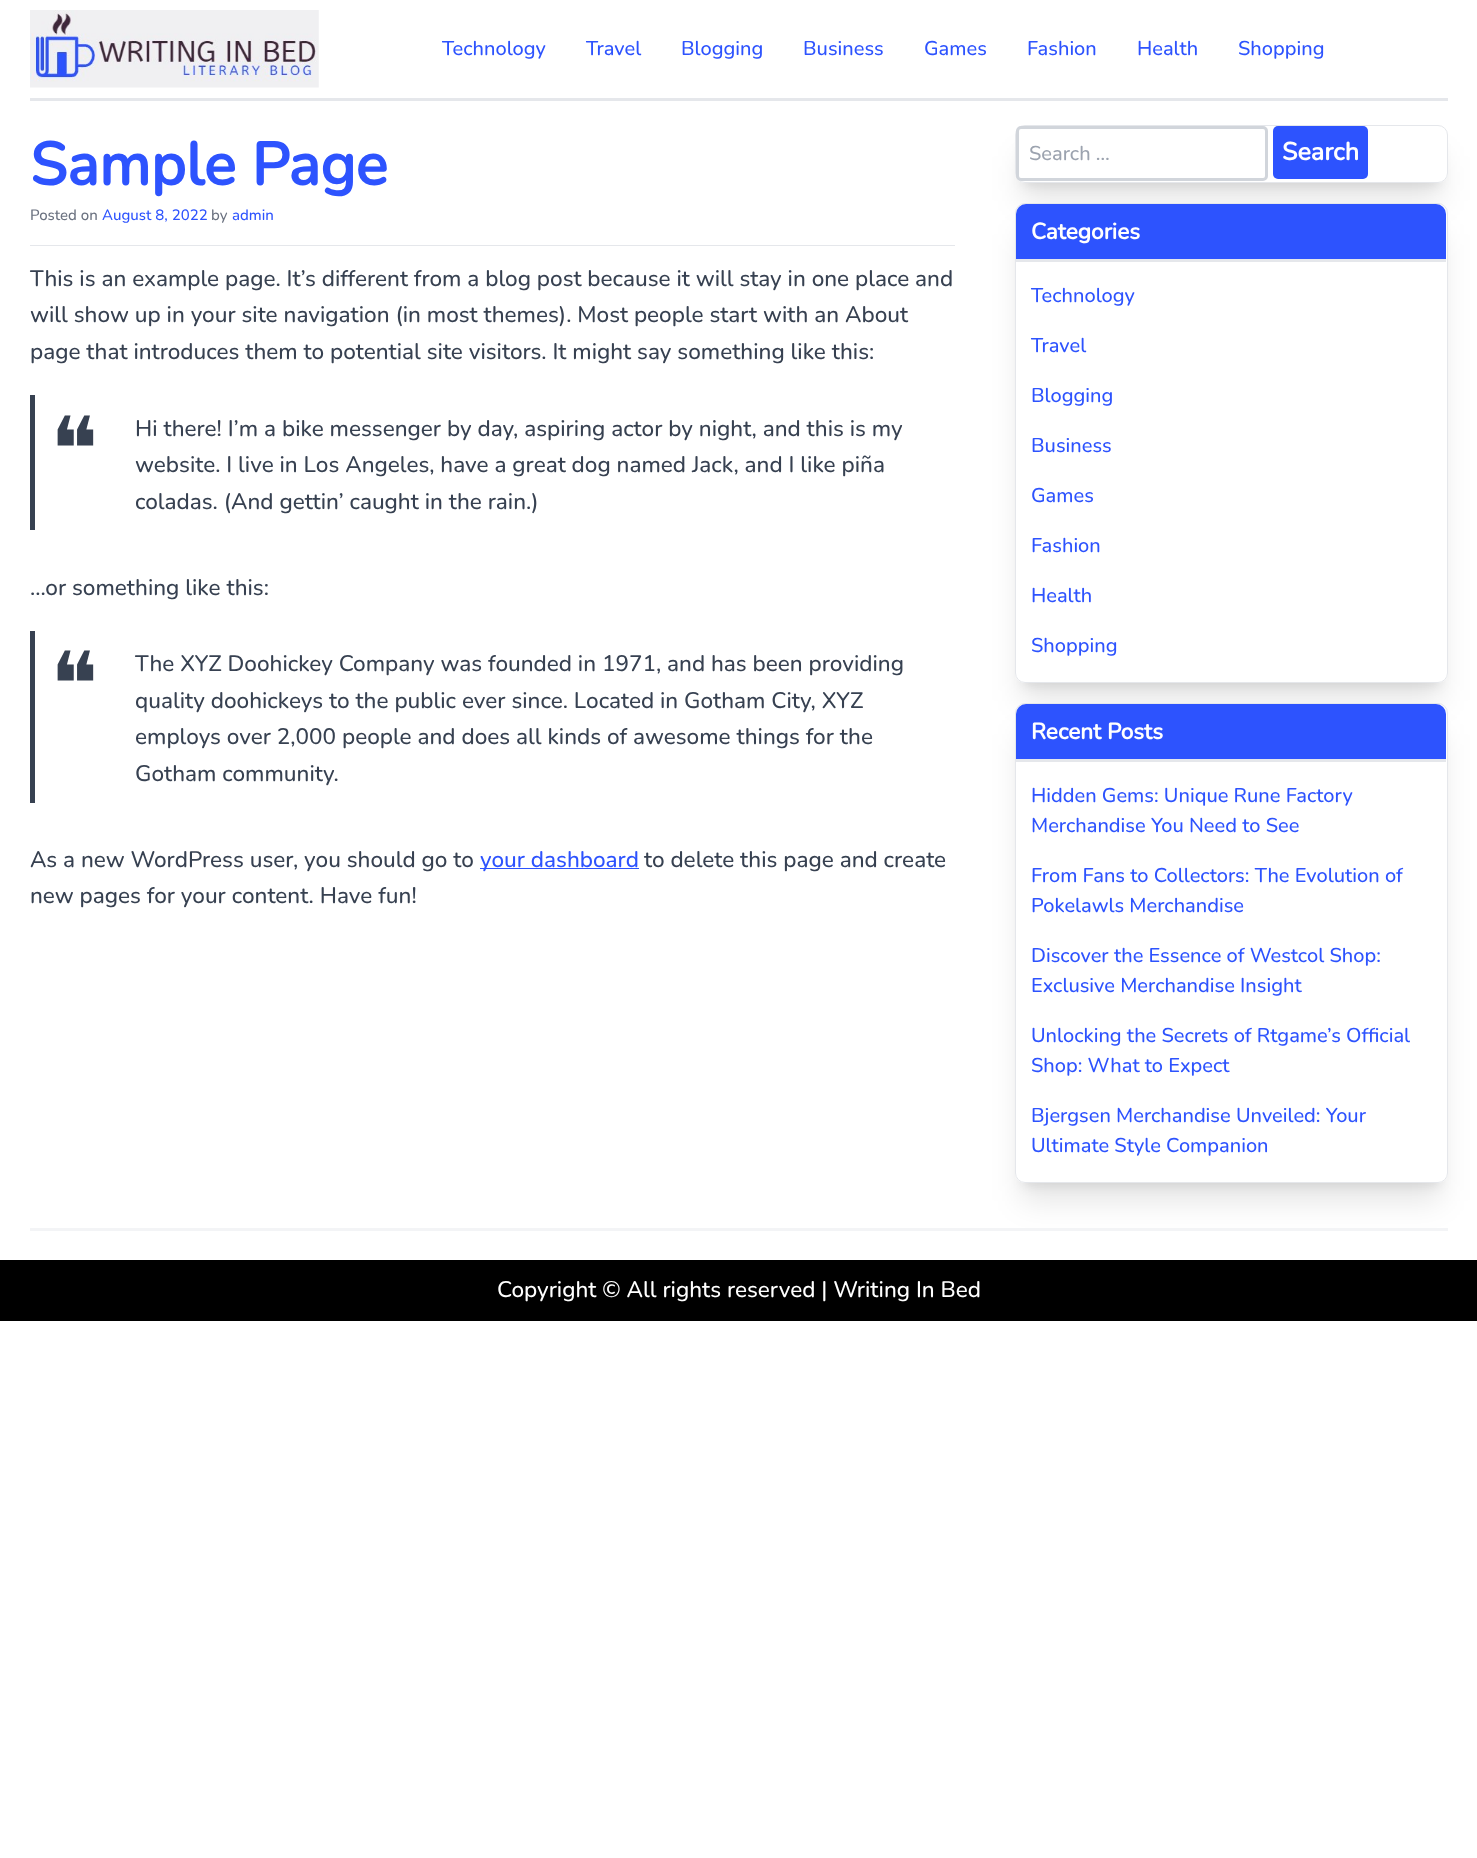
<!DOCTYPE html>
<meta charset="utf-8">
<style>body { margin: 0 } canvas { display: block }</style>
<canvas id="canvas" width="1477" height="1858"></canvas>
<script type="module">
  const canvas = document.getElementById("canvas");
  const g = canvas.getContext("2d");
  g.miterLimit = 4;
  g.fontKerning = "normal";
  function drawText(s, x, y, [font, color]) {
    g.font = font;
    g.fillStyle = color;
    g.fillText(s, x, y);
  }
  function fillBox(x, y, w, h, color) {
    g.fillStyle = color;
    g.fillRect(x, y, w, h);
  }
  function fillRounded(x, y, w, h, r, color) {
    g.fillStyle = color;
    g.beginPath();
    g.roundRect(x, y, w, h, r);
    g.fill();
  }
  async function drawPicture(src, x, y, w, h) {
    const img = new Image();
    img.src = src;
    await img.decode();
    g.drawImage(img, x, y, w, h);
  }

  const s1 = ["200 20px Nunito", "#2D53FE"];
  const s2 = ["bold 60px Nunito", "#2D53FE"];
  const s3 = ["200 15px Nunito", "#6B7280"];
  const s4 = ["200 15px Nunito", "#2D53FE"];
  const s5 = ["200 22.5px Nunito", "#374151"];
  const s6 = ["90px DejaVu Sans", "#374151"];
  const s7 = ["200 22.5px Nunito", "#2D53FE"];
  const s8 = ["200 20px Nunito", "#9CA3AF"];
  const s9 = ["bold 25px Nunito", "#FFFFFF"];
  const s10 = ["bold 22.5px Nunito", "#FFFFFF"];
  const s11 = ["200 22.5px Nunito", "#FFFFFF"];

  fillBox(0, 0, 1477, 1858, "#FFFFFF");
  fillBox(30, 98, 1418, 3, "#E5E7EB");
  await drawPicture("pic1.png", 30, 10, 289, 78);
  drawText("Technology", 442, 55, s1);
  drawText("Travel", 586, 55, s1);
  drawText("Blogging", 681, 55, s1);
  drawText("Business", 803, 55, s1);
  drawText("Games", 924, 55, s1);
  drawText("Fashion", 1027, 55, s1);
  drawText("Health", 1137, 55, s1);
  drawText("Shopping", 1238, 55, s1);
  fillBox(30, 245, 925, 1, "#E5E7EB");
  drawText("Sample Page", 30, 185, s2);
  drawText("Posted on", 30, 220, s3);
  drawText("August 8, 2022", 102, 220, s4);
  drawText("by", 211, 220, s3);
  drawText("admin", 232, 220, s4);
  drawText("This is an example page. It’s different from a blog post because it will stay in one place and", 30, 286, s5);
  drawText("will show up in your site navigation (in most themes). Most people start with an About", 30, 322, s5);
  drawText("page that introduces them to potential site visitors. It might say something like this:", 30, 359, s5);
  fillBox(30, 395, 5, 135, "#374151");
  drawText("❝", 50, 481, s6);
  drawText("Hi there! I’m a bike messenger by day, aspiring actor by night, and this is my", 135, 436, s5);
  drawText("website. I live in Los Angeles, have a great dog named Jack, and I like piña", 135, 472, s5);
  drawText("coladas. (And gettin’ caught in the rain.)", 135, 509, s5);
  drawText("…or something like this:", 30, 595, s5);
  fillBox(30, 631, 5, 172, "#374151");
  drawText("❝", 50, 716, s6);
  drawText("The XYZ Doohickey Company was founded in 1971, and has been providing", 135, 671, s5);
  drawText("quality doohickeys to the public ever since. Located in Gotham City, XYZ", 135, 708, s5);
  drawText("employs over 2,000 people and does all kinds of awesome things for the", 135, 744, s5);
  drawText("Gotham community.", 135, 781, s5);
  drawText("As a new WordPress user, you should go to", 30, 867, s5);
  fillBox(480, 868, 159, 1, "#2D53FE");
  drawText("your dashboard", 480, 867, s7);
  drawText("to delete this page and create", 644, 867, s5);
  drawText("new pages for your content. Have fun!", 30, 903, s5);
  g.save();
  g.beginPath();
  g.moveTo(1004, 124);
  g.lineTo(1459, 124);
  g.lineTo(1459, 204);
  g.lineTo(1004, 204);
  g.closePath();
  g.moveTo(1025, 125);
  g.lineTo(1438, 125);
  g.bezierCurveTo(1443.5, 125, 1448, 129.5, 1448, 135);
  g.lineTo(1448, 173);
  g.bezierCurveTo(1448, 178.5, 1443.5, 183, 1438, 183);
  g.lineTo(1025, 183);
  g.bezierCurveTo(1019.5, 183, 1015, 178.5, 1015, 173);
  g.lineTo(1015, 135);
  g.bezierCurveTo(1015, 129.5, 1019.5, 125, 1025, 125);
  g.closePath();
  g.clip("evenodd");
  g.fillStyle = "rgba(0, 0, 0, 0.1)";
  g.filter = "blur(6px)";
  g.beginPath();
  g.roundRect(1023, 143, 417, 42, 2.5);
  g.fill();
  g.filter = "none";
  g.restore();
  g.save();
  g.beginPath();
  g.moveTo(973, 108);
  g.lineTo(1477, 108);
  g.lineTo(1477, 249);
  g.lineTo(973, 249);
  g.closePath();
  g.moveTo(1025, 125);
  g.lineTo(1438, 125);
  g.bezierCurveTo(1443.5, 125, 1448, 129.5, 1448, 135);
  g.lineTo(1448, 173);
  g.bezierCurveTo(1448, 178.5, 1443.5, 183, 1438, 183);
  g.lineTo(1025, 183);
  g.bezierCurveTo(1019.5, 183, 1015, 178.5, 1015, 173);
  g.lineTo(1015, 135);
  g.bezierCurveTo(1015, 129.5, 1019.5, 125, 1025, 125);
  g.closePath();
  g.clip("evenodd");
  g.fillStyle = "rgba(0, 0, 0, 0.1)";
  g.filter = "blur(15.5px)";
  g.beginPath();
  g.roundRect(1021, 156, 420, 45, 4);
  g.fill();
  g.filter = "none";
  g.restore();
  g.beginPath();
  g.roundRect(1015.5, 125.5, 432, 57, 9.5);
  g.strokeStyle = "#E5E7EB";
  g.stroke();
  g.fillStyle = "#FFFFFF";
  g.beginPath();
  g.roundRect(1017.5, 127.5, 249, 52, 3.5);
  g.fill();
  g.strokeStyle = "#D1D5DB";
  g.lineWidth = 3;
  g.stroke();
  drawText("Search …", 1029, 160, s8);
  fillRounded(1273, 126, 95, 53, 5, "#2D53FE");
  drawText("Search", 1282, 160, s9);
  g.save();
  g.beginPath();
  g.moveTo(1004, 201);
  g.lineTo(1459, 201);
  g.lineTo(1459, 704);
  g.lineTo(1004, 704);
  g.closePath();
  g.moveTo(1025, 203);
  g.lineTo(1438, 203);
  g.bezierCurveTo(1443.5, 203, 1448, 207.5, 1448, 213);
  g.lineTo(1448, 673);
  g.bezierCurveTo(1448, 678.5, 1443.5, 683, 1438, 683);
  g.lineTo(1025, 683);
  g.bezierCurveTo(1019.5, 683, 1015, 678.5, 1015, 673);
  g.lineTo(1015, 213);
  g.bezierCurveTo(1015, 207.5, 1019.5, 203, 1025, 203);
  g.closePath();
  g.clip("evenodd");
  g.fillStyle = "rgba(0, 0, 0, 0.1)";
  g.filter = "blur(6px)";
  g.beginPath();
  g.roundRect(1023, 220, 417, 465, 2.5);
  g.fill();
  g.filter = "none";
  g.restore();
  g.save();
  g.beginPath();
  g.moveTo(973, 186);
  g.lineTo(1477, 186);
  g.lineTo(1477, 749);
  g.lineTo(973, 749);
  g.closePath();
  g.moveTo(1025, 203);
  g.lineTo(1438, 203);
  g.bezierCurveTo(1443.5, 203, 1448, 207.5, 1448, 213);
  g.lineTo(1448, 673);
  g.bezierCurveTo(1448, 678.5, 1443.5, 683, 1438, 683);
  g.lineTo(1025, 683);
  g.bezierCurveTo(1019.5, 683, 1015, 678.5, 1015, 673);
  g.lineTo(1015, 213);
  g.bezierCurveTo(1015, 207.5, 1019.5, 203, 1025, 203);
  g.closePath();
  g.clip("evenodd");
  g.fillStyle = "rgba(0, 0, 0, 0.1)";
  g.filter = "blur(15.5px)";
  g.beginPath();
  g.roundRect(1021, 234, 420, 467, 4);
  g.fill();
  g.filter = "none";
  g.restore();
  g.beginPath();
  g.roundRect(1015.5, 203.5, 432, 479, 9.5);
  g.strokeStyle = "#E5E7EB";
  g.lineWidth = 1;
  g.stroke();
  g.fillStyle = "#2D53FE";
  g.beginPath();
  g.roundRect(1016, 204, 430, 55, [10, 10, 0, 0]);
  g.fill();
  fillBox(1016, 259, 430, 3, "#E5E7EB");
  drawText("Categories", 1031, 239, s10);
  drawText("Technology", 1031, 302, s1);
  drawText("Travel", 1031, 352, s1);
  drawText("Blogging", 1031, 402, s1);
  drawText("Business", 1031, 452, s1);
  drawText("Games", 1031, 502, s1);
  drawText("Fashion", 1031, 552, s1);
  drawText("Health", 1031, 602, s1);
  drawText("Shopping", 1031, 652, s1);
  g.save();
  g.beginPath();
  g.moveTo(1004, 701);
  g.lineTo(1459, 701);
  g.lineTo(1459, 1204);
  g.lineTo(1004, 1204);
  g.closePath();
  g.moveTo(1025, 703);
  g.lineTo(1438, 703);
  g.bezierCurveTo(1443.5, 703, 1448, 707.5, 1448, 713);
  g.lineTo(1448, 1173);
  g.bezierCurveTo(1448, 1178.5, 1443.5, 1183, 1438, 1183);
  g.lineTo(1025, 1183);
  g.bezierCurveTo(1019.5, 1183, 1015, 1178.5, 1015, 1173);
  g.lineTo(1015, 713);
  g.bezierCurveTo(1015, 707.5, 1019.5, 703, 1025, 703);
  g.closePath();
  g.clip("evenodd");
  g.fillStyle = "rgba(0, 0, 0, 0.1)";
  g.filter = "blur(6px)";
  g.beginPath();
  g.roundRect(1023, 720, 417, 465, 2.5);
  g.fill();
  g.filter = "none";
  g.restore();
  g.save();
  g.beginPath();
  g.moveTo(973, 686);
  g.lineTo(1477, 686);
  g.lineTo(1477, 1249);
  g.lineTo(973, 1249);
  g.closePath();
  g.moveTo(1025, 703);
  g.lineTo(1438, 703);
  g.bezierCurveTo(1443.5, 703, 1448, 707.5, 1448, 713);
  g.lineTo(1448, 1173);
  g.bezierCurveTo(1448, 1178.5, 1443.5, 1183, 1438, 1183);
  g.lineTo(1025, 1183);
  g.bezierCurveTo(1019.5, 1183, 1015, 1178.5, 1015, 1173);
  g.lineTo(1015, 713);
  g.bezierCurveTo(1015, 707.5, 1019.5, 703, 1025, 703);
  g.closePath();
  g.clip("evenodd");
  g.fillStyle = "rgba(0, 0, 0, 0.1)";
  g.filter = "blur(15.5px)";
  g.beginPath();
  g.roundRect(1021, 734, 420, 467, 4);
  g.fill();
  g.filter = "none";
  g.restore();
  g.beginPath();
  g.roundRect(1015.5, 703.5, 432, 479, 9.5);
  g.stroke();
  g.beginPath();
  g.roundRect(1016, 704, 430, 55, [10, 10, 0, 0]);
  g.fill();
  fillBox(1016, 759, 430, 3, "#E5E7EB");
  drawText("Recent Posts", 1031, 739, s10);
  drawText("Hidden Gems: Unique Rune Factory", 1031, 802, s1);
  drawText("Merchandise You Need to See", 1031, 832, s1);
  drawText("From Fans to Collectors: The Evolution of", 1031, 882, s1);
  drawText("Pokelawls Merchandise", 1031, 912, s1);
  drawText("Discover the Essence of Westcol Shop:", 1031, 962, s1);
  drawText("Exclusive Merchandise Insight", 1031, 992, s1);
  drawText("Unlocking the Secrets of Rtgame’s Official", 1031, 1042, s1);
  drawText("Shop: What to Expect", 1031, 1072, s1);
  drawText("Bjergsen Merchandise Unveiled: Your", 1031, 1122, s1);
  drawText("Ultimate Style Companion", 1031, 1152, s1);
  fillBox(30, 1228, 1418, 3, "#F3F4F6");
  fillBox(0, 1260, 1477, 61, "#000000");
  drawText("Copyright © All rights reserved | Writing In Bed", 497, 1297, s11);
</script>
